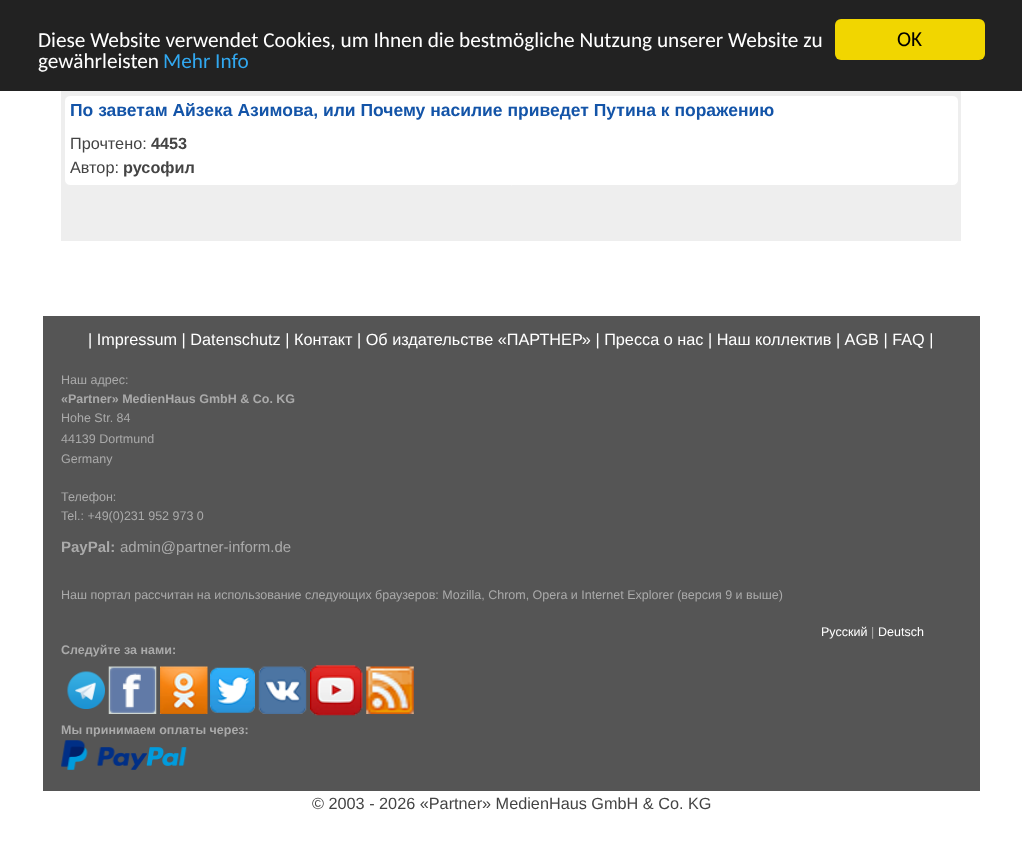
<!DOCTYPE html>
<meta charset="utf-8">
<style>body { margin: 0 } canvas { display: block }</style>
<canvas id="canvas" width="1022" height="842"></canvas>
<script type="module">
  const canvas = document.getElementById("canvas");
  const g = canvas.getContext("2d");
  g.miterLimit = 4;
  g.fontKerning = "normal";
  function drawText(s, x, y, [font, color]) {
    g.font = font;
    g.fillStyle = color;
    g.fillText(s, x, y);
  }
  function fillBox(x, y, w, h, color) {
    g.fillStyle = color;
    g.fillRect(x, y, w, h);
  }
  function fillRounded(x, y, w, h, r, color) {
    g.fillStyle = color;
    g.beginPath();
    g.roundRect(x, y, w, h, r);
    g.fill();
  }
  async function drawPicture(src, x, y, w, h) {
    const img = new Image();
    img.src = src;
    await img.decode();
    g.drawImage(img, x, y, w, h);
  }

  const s1 = ["21.25px Carlito", "#FFFFFF"];
  const s2 = ["21.25px Carlito", "#31A8F0"];
  const s3 = ["21.25px Carlito", "#000000"];
  const s4 = ["bold 17.5px Liberation Sans", "#1354A8"];
  const s5 = ["16.25px Liberation Sans", "#444444"];
  const s6 = ["bold 16.25px Liberation Sans", "#444444"];
  const s7 = ["16.25px Liberation Sans", "#FFFFFF"];
  const s8 = ["12.5px Liberation Sans", "#AAAAAA"];
  const s9 = ["bold 12.5px Liberation Sans", "#AAAAAA"];
  const s10 = ["bold 15px Liberation Sans", "#AAAAAA"];
  const s11 = ["15px Liberation Sans", "#AAAAAA"];
  const s12 = ["12.5px Liberation Sans", "#FFFFFF"];

  fillBox(0, 0, 1022, 842, "#FFFFFF");
  fillBox(0, 0, 1022, 91, "#222222");
  drawText("Diese Website verwendet Cookies, um Ihnen die bestmögliche Nutzung unserer Website zu", 38, 47, s1);
  drawText("gewährleisten", 38, 68, s1);
  drawText("Mehr Info", 163, 68, s2);
  fillRounded(835, 19, 150, 41, 6, "#F1D600");
  drawText("OK", 897, 46, s3);
  fillBox(61, 91, 900, 150, "#EEEEEE");
  g.fillStyle = "#FFFFFF";
  g.beginPath();
  g.roundRect(64.5, 95.5, 894, 90, 5.5);
  g.fill();
  g.strokeStyle = "#EEEEEE";
  g.stroke();
  drawText("По заветам Айзека Азимова, или Почему насилие приведет Путина к поражению", 70, 116, s4);
  drawText("Прочтено:", 70, 149, s5);
  drawText("4453", 151, 149, s6);
  drawText("Автор:", 70, 173, s5);
  drawText("русофил", 123, 173, s6);
  fillBox(43, 316, 937, 475, "#555555");
  drawText("| Impressum | Datenschutz | Контакт | Об издательстве «ПАРТНЕР» | Пресса о нас | Наш коллектив | AGB | FAQ |", 88, 345, s7);
  drawText("Наш адрес:", 61, 384, s8);
  drawText("«Partner» MedienHaus GmbH & Co. KG", 61, 403, s9);
  drawText("Hohe Str. 84", 61, 422, s8);
  drawText("44139 Dortmund", 61, 443, s8);
  drawText("Germany", 61, 463, s8);
  drawText("Телефон:", 61, 501, s8);
  drawText("Tel.: +49(0)231 952 973 0", 61, 520, s8);
  drawText("PayPal:", 61, 552, s10);
  drawText("admin@partner-inform.de", 120, 552, s11);
  drawText("Наш портал рассчитан на использование следующих браузеров: Mozilla, Chrom, Opera и Internet Explorer (версия 9 и выше)", 61, 599, s8);
  drawText("Русский", 821, 636, s12);
  drawText("|", 871, 636, s8);
  drawText("Deutsch", 878, 636, s12);
  drawText("Следуйте за нами:", 61, 654, s9);
  await drawPicture("pic1.png", 67, 671, 38, 38);
  await drawPicture("pic2.png", 108, 666, 49, 48);
  await drawPicture("pic3.png", 160, 666, 48, 48);
  await drawPicture("pic4.png", 210, 667, 45, 46);
  await drawPicture("pic5.png", 258, 666, 49, 48);
  await drawPicture("pic6.png", 310, 665, 53, 51);
  await drawPicture("pic7.png", 366, 666, 48, 48);
  drawText("Мы принимаем оплаты через:", 61, 734, s9);
  await drawPicture("pic8.png", 61, 740, 126, 30);
  drawText("© 2003 - 2026 «Partner» MedienHaus GmbH & Co. KG", 312, 809, s5);
</script>
